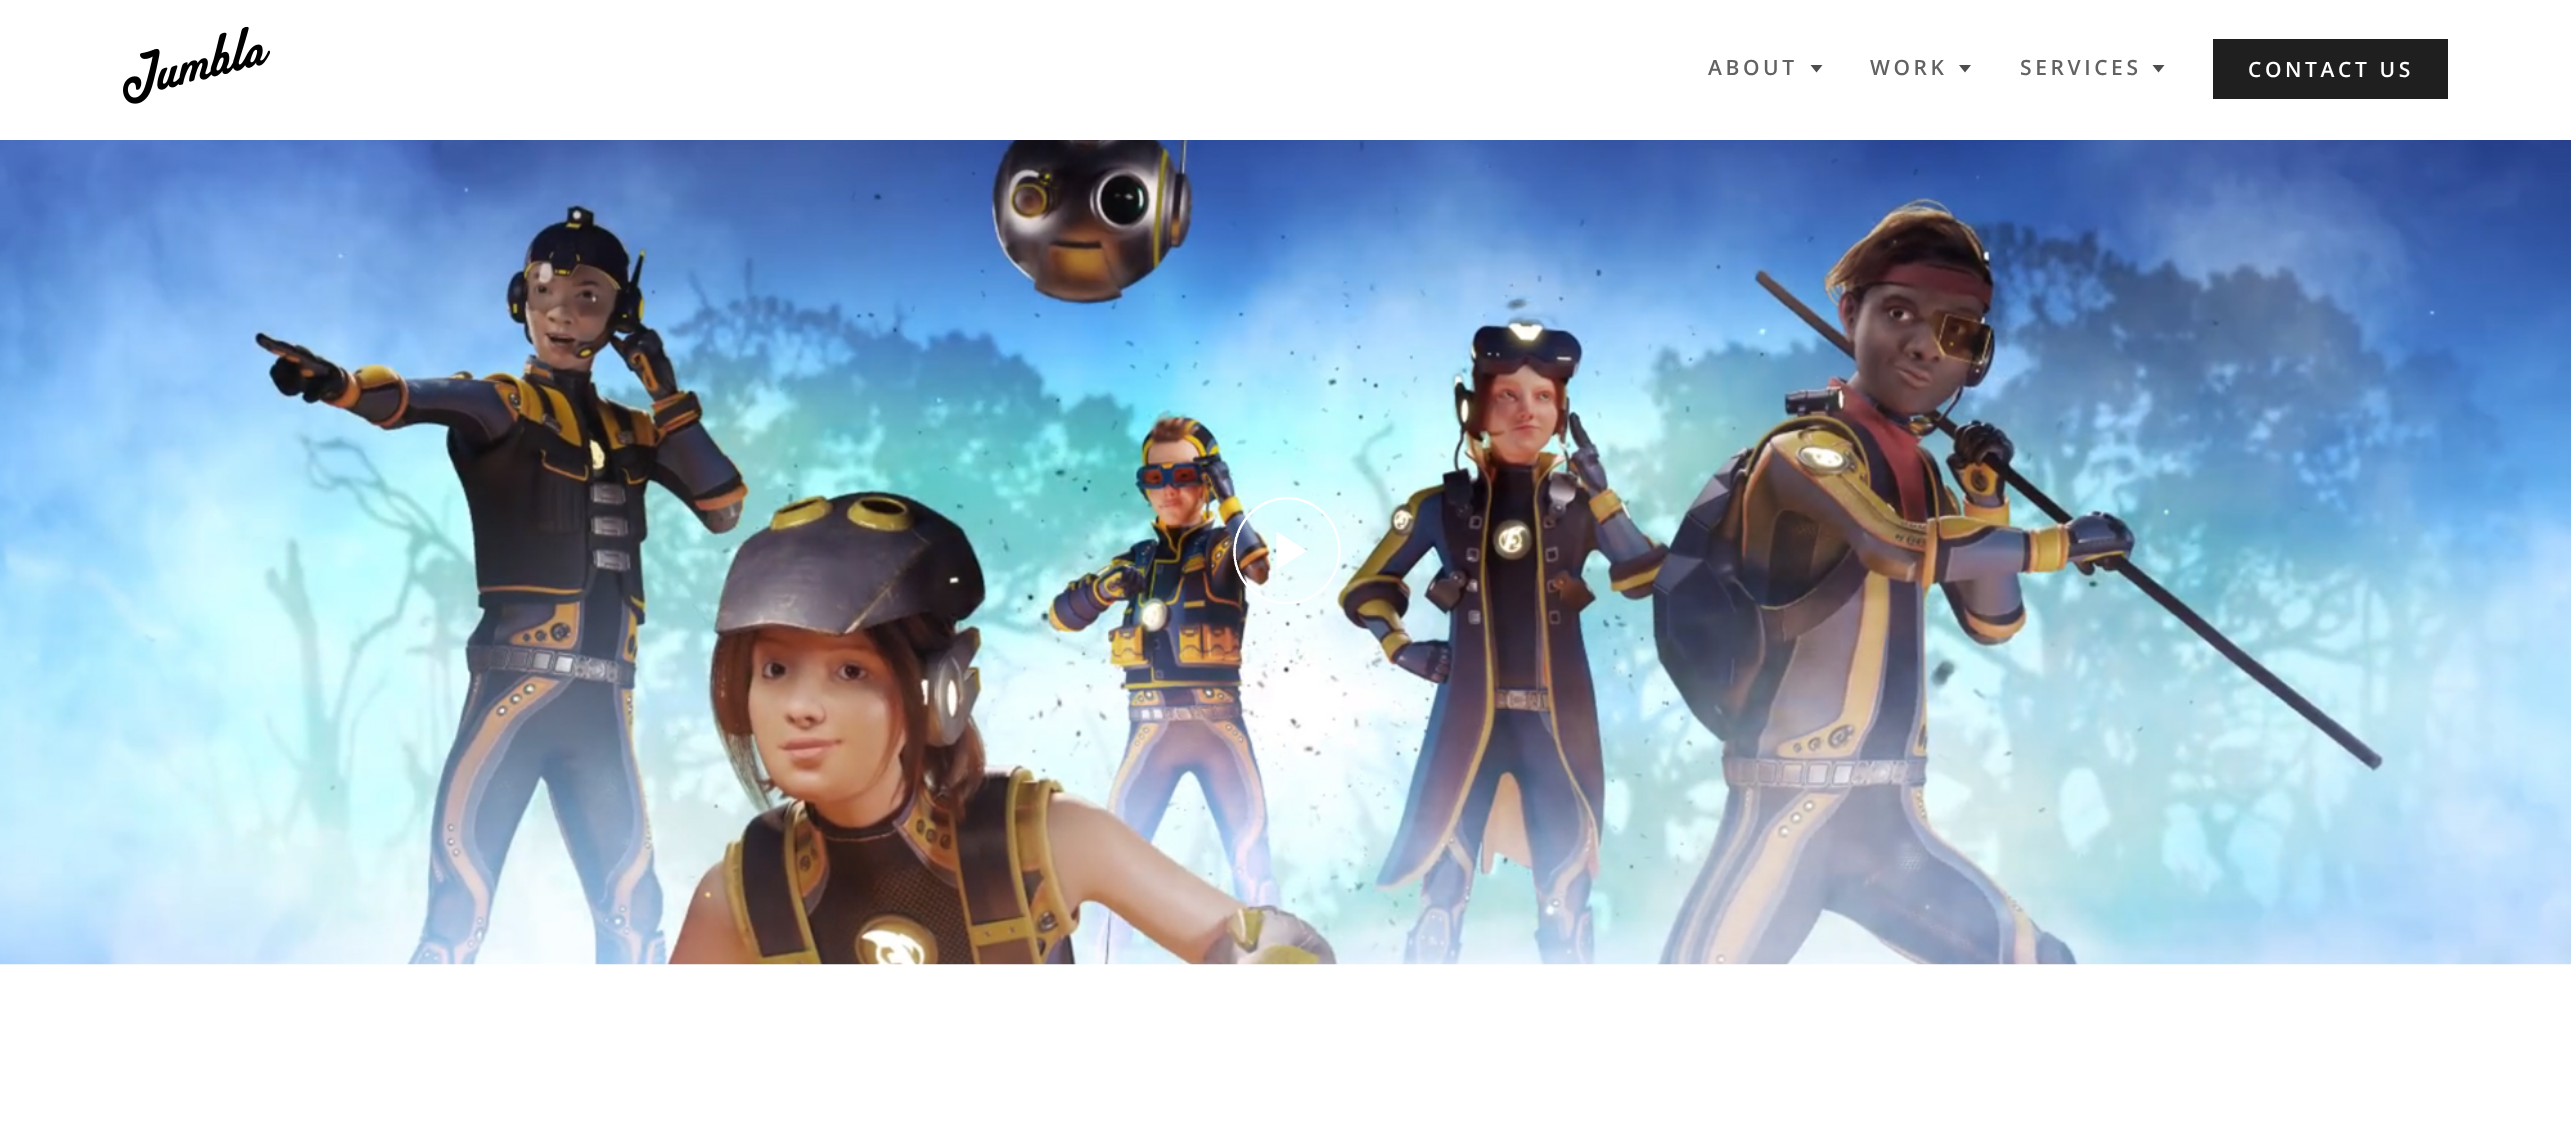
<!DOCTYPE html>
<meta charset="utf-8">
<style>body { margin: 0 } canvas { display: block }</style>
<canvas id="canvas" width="2571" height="1123"></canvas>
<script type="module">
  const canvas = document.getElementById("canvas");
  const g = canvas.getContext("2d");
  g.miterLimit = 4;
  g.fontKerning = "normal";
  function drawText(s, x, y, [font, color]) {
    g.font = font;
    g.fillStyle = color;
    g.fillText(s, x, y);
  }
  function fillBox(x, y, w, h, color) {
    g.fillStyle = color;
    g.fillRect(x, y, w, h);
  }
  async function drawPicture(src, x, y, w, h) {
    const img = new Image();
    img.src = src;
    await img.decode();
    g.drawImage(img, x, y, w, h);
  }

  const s1 = ["600 21px Open Sans", "#626262"];
  const s2 = ["600 21px Open Sans", "#FFFFFF"];

  fillBox(0, 0, 2571, 1123, "#FFFFFF");
  await drawPicture("pic1.png", 123, 26, 147, 78);
  g.fillStyle = "#4D4D4D";
  g.beginPath();
  g.moveTo(1812, 65);
  g.lineTo(1822.5, 65);
  g.lineTo(1816.5, 72.5);
  g.lineTo(1810.5, 65);
  g.closePath();
  g.fill();
  g.letterSpacing = "3.6px";
  drawText("ABOUT", 1708, 75, s1);
  g.fillStyle = "#4D4D4D";
  g.beginPath();
  g.moveTo(1960.5, 65);
  g.lineTo(1971, 65);
  g.lineTo(1965, 72.5);
  g.lineTo(1959, 65);
  g.closePath();
  g.fill();
  drawText("WORK", 1870, 75, s1);
  g.fillStyle = "#4D4D4D";
  g.beginPath();
  g.moveTo(2154, 65);
  g.lineTo(2164.5, 65);
  g.lineTo(2158.5, 72.5);
  g.lineTo(2152.5, 65);
  g.closePath();
  g.fill();
  drawText("SERVICES", 2020, 75, s1);
  fillBox(2213, 39, 235, 60, "#1F1F1F");
  drawText("CONTACT US", 2248, 77, s2);
  await drawPicture("pic2.png", 0, 140, 2571, 825);
  await drawPicture("pic3.png", 1233, 497, 108, 107);
</script>
